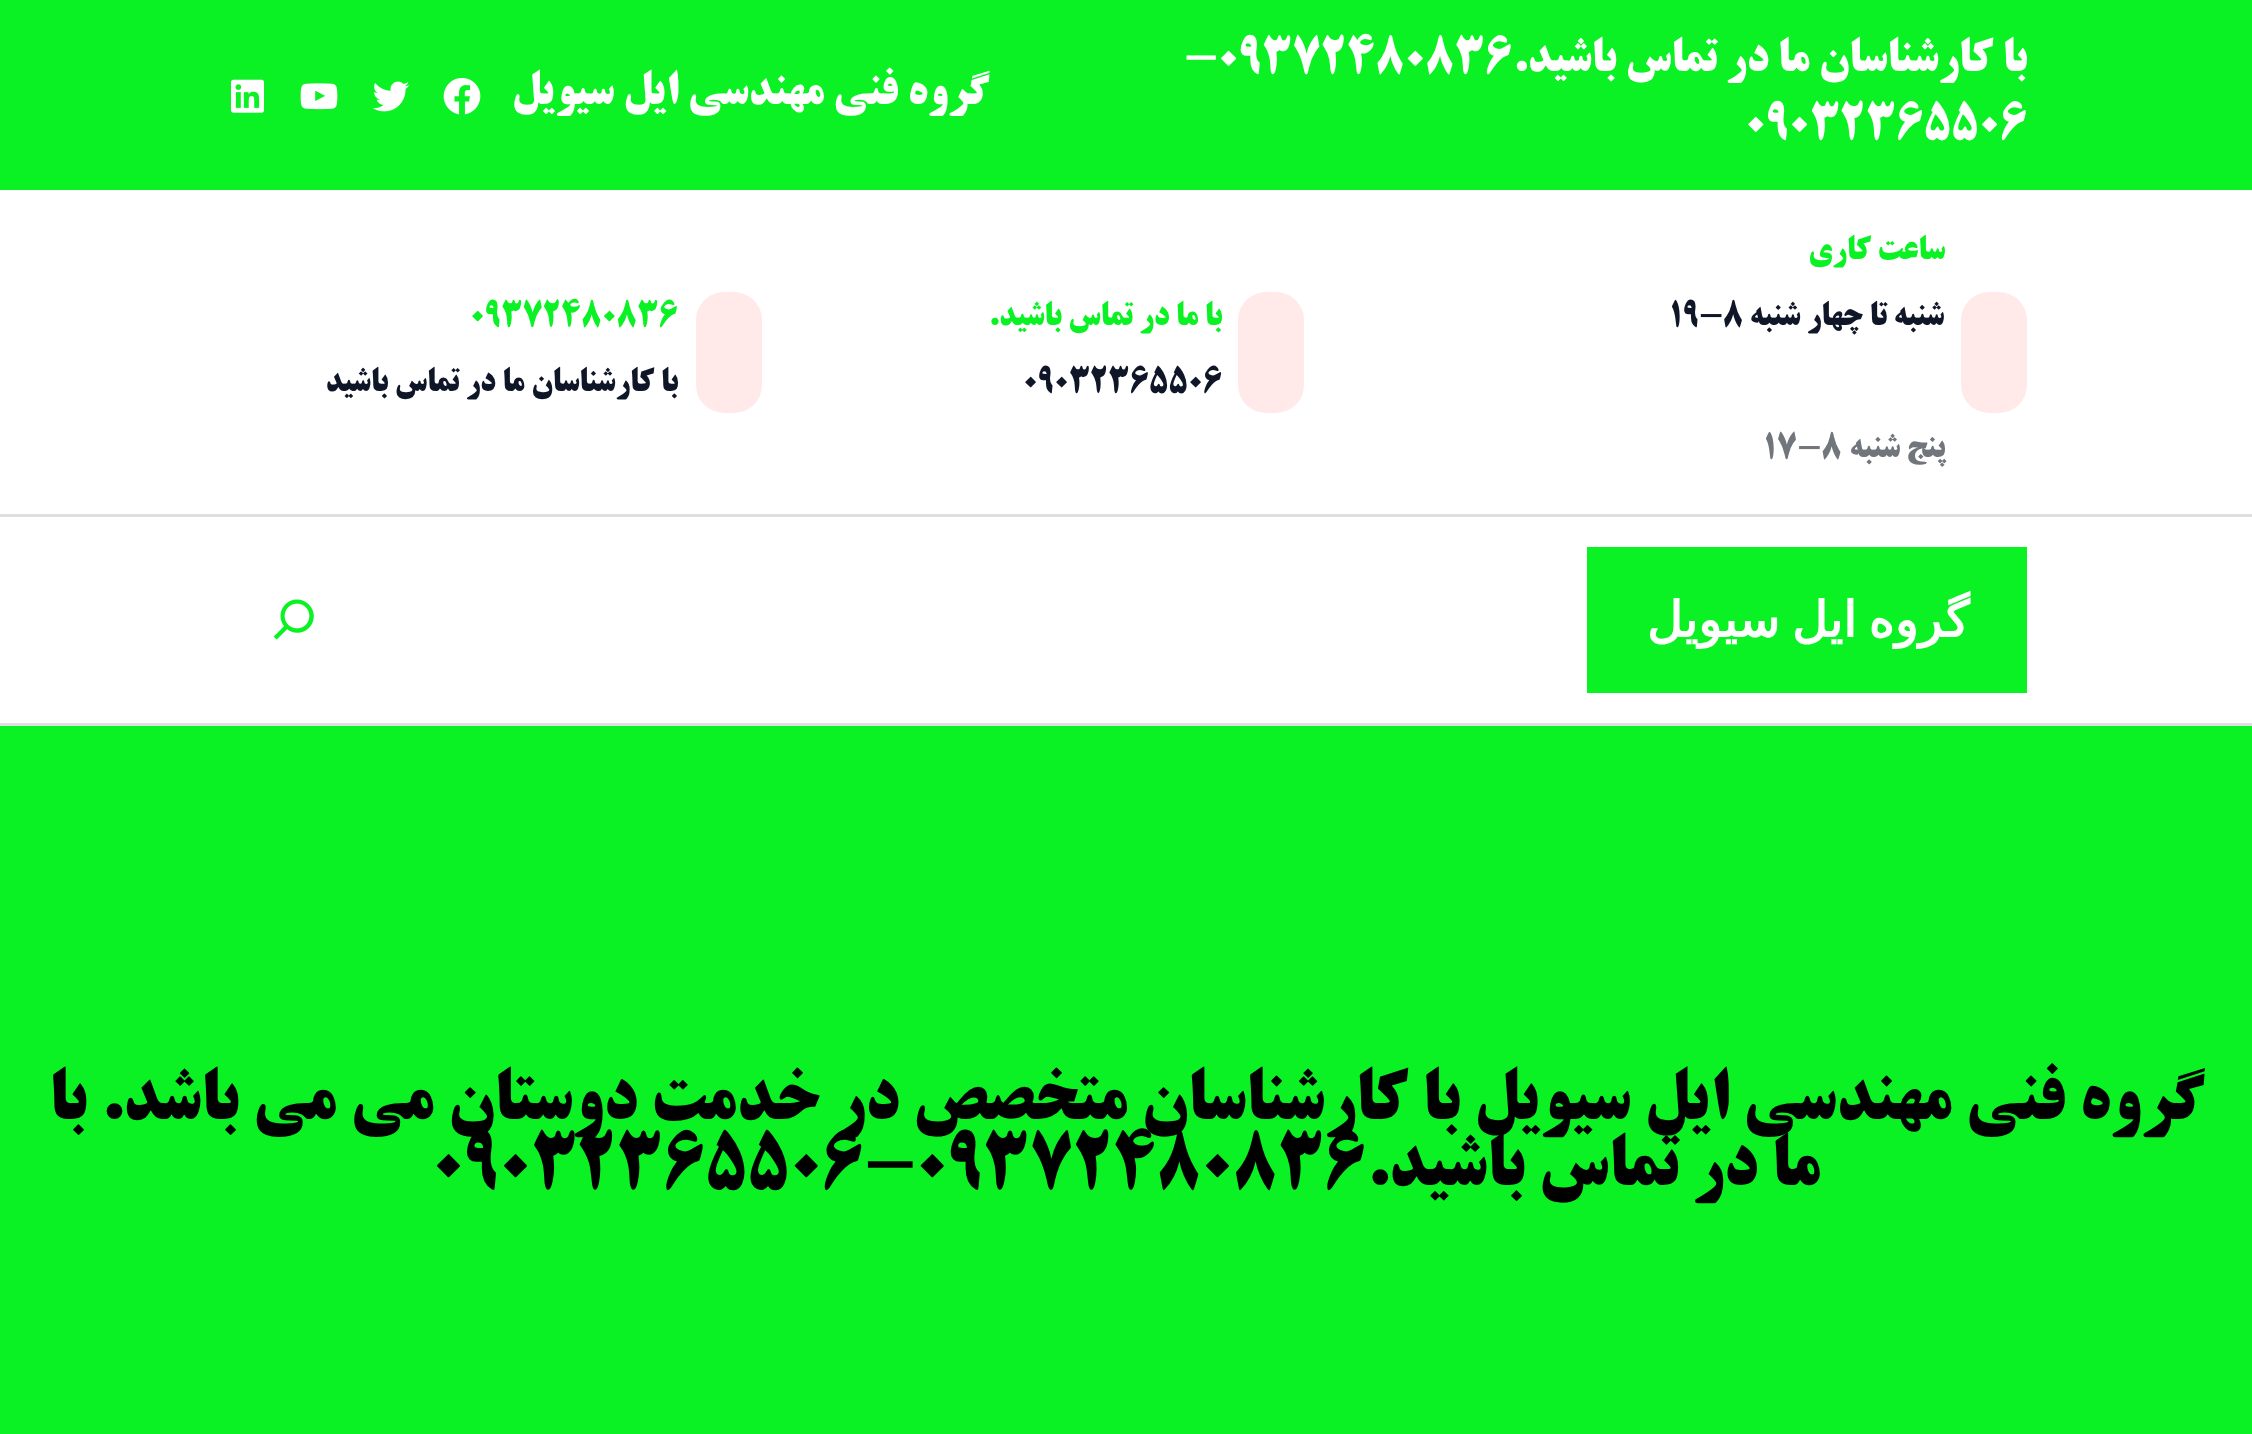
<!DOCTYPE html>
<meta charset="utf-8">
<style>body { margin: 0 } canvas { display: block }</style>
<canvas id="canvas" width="2252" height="1434"></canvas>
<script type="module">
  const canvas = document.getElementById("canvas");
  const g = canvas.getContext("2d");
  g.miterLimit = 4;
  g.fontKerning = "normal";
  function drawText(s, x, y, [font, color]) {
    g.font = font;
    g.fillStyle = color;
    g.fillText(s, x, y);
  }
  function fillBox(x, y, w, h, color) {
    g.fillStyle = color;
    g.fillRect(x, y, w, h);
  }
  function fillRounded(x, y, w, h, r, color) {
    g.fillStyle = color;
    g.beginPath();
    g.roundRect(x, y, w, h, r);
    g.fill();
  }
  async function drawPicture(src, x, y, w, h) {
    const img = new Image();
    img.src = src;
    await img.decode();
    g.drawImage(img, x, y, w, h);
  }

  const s1 = ["bold 46.75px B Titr", "#FFFFFF"];
  const s2 = ["bold 33px B Titr", "#0AF224"];
  const s3 = ["bold 33px B Titr", "#0F1628"];
  const s4 = ["bold 33px B Titr", "#71767C"];
  const s5 = ["bold 49.5px DejaVu Sans", "#FFFFFF"];
  const s6 = ["bold 71.5px B Titr", "#000000"];

  fillBox(0, 0, 2252, 1434, "#0AF224");
  g.direction = "rtl";
  drawText("با کارشناسان ما در تماس باشید.", 2027, 71, s1);
  g.direction = "ltr";
  drawText("-09372480836", 1184, 71, s1);
  drawText("09032365506", 1745, 137, s1);
  g.direction = "rtl";
  drawText("گروه فنی مهندسی ایل سیویل", 989, 104, s1);
  await drawPicture("pic1.png", 443, 77, 38, 38);
  await drawPicture("pic2.png", 372, 81, 38, 31);
  await drawPicture("pic3.png", 300, 83, 38, 27);
  await drawPicture("pic4.png", 231, 79, 33, 34);
  fillBox(0, 190, 2252, 324, "#FFFFFF");
  fillRounded(1961, 292, 66, 121, 28, "#FFE9E9");
  drawText("ساعت کاری", 1945, 259, s2);
  drawText("شنبه تا چهار شنبه", 1944, 325, s3);
  g.direction = "ltr";
  drawText("19-8", 1669, 325, s3);
  g.direction = "rtl";
  drawText("پنج شنبه", 1945, 457, s4);
  g.direction = "ltr";
  drawText("17-8", 1763, 457, s4);
  fillRounded(1238, 292, 66, 121, 28, "#FFE9E9");
  g.direction = "rtl";
  drawText("با ما در تماس باشید.", 1222, 325, s2);
  g.direction = "ltr";
  drawText("09032365506", 1023, 391, s3);
  fillRounded(696, 292, 66, 121, 28, "#FFE9E9");
  drawText("09372480836", 470, 325, s2);
  g.direction = "rtl";
  drawText("با کارشناسان ما در تماس باشید", 678, 391, s3);
  fillBox(0, 517, 2252, 206, "#FFFFFF");
  fillBox(0, 514, 2252, 3, "#DFDFDF");
  fillBox(0, 723, 2252, 3, "#DFDFDF");
  fillBox(1587, 547, 440, 146, "#0AF224");
  g.wordSpacing = "-4px";
  drawText("گروه ایل سیویل", 1969, 637, s5);
  await drawPicture("pic5.png", 273, 599, 41, 41);
  g.wordSpacing = "0px";
  drawText("گروه فنی مهندسی ایل سیویل با کارشناسان متخصص در خدمت دوستان می می باشد. با", 2204, 1119, s6);
  drawText("ما در تماس باشید.", 1820, 1185, s6);
  g.direction = "ltr";
  drawText("09032365506-09372480836", 432, 1185, s6);
</script>
